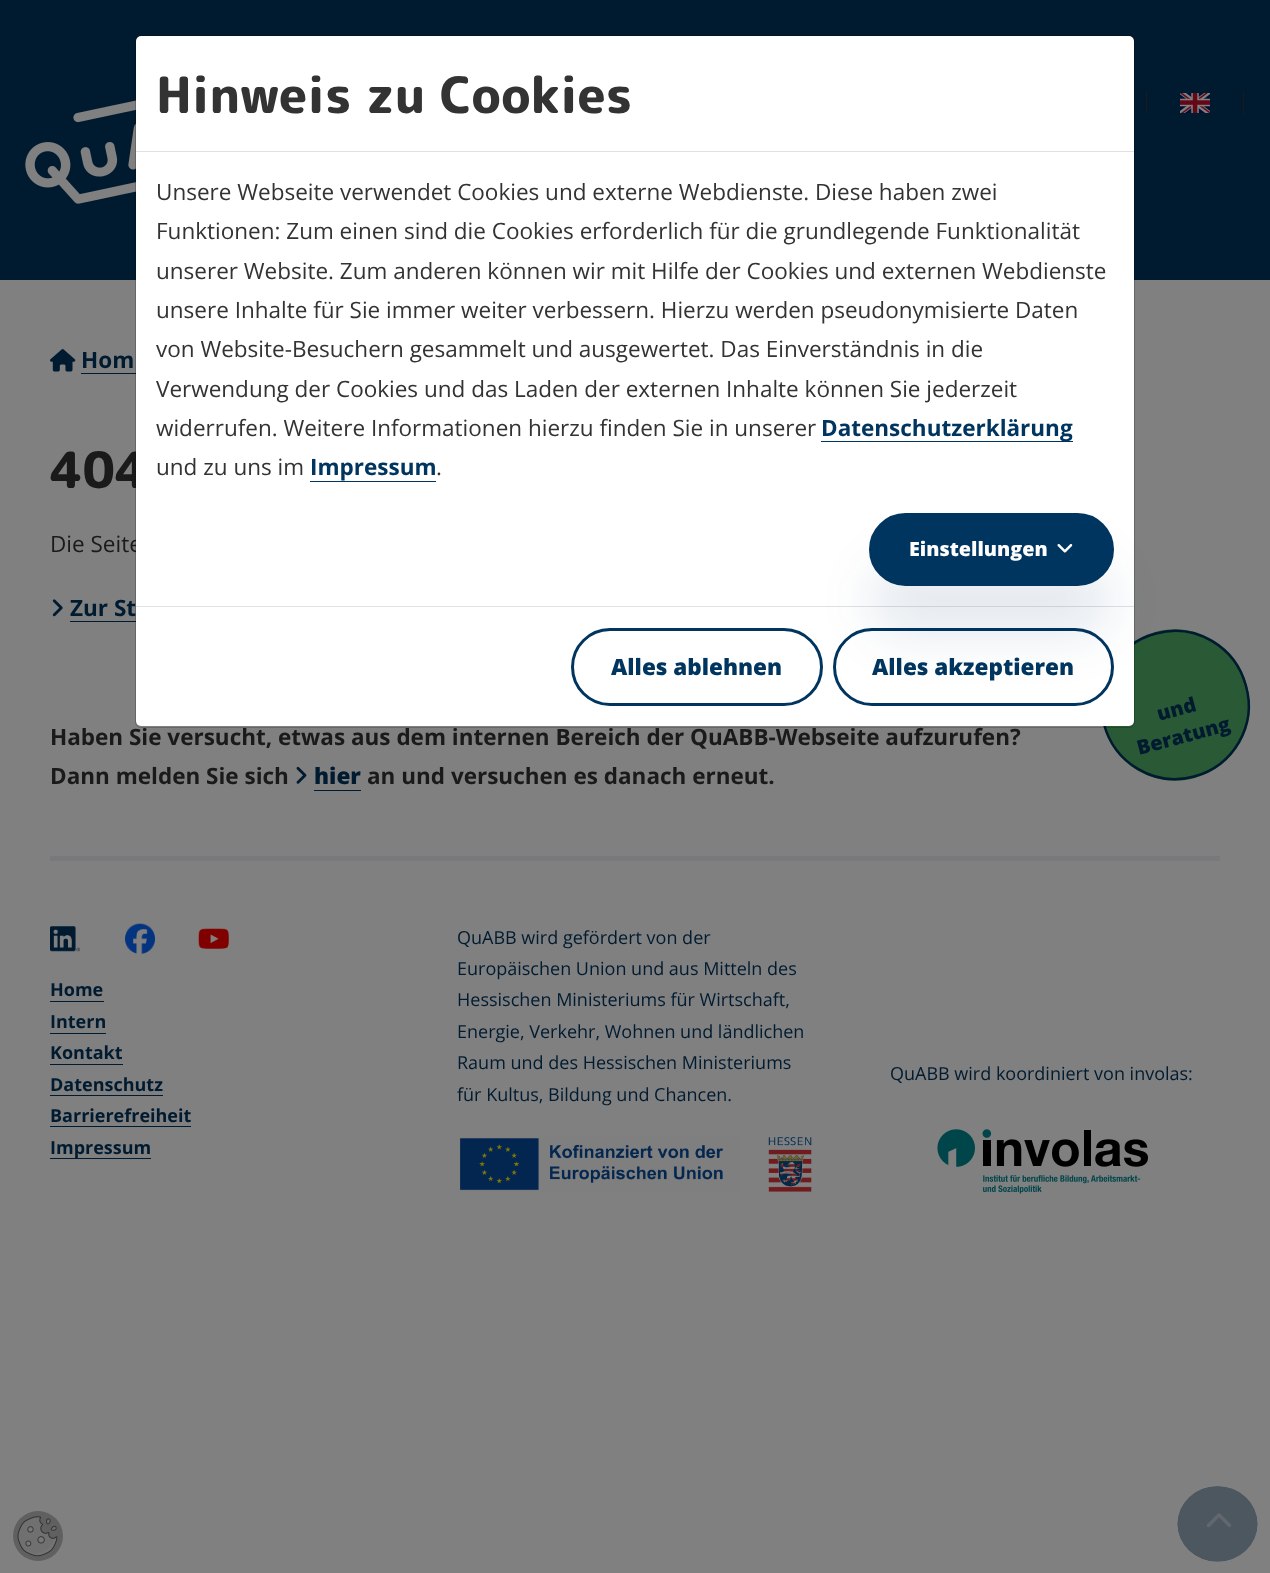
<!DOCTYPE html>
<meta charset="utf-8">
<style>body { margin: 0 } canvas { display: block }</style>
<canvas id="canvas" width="1270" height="1573"></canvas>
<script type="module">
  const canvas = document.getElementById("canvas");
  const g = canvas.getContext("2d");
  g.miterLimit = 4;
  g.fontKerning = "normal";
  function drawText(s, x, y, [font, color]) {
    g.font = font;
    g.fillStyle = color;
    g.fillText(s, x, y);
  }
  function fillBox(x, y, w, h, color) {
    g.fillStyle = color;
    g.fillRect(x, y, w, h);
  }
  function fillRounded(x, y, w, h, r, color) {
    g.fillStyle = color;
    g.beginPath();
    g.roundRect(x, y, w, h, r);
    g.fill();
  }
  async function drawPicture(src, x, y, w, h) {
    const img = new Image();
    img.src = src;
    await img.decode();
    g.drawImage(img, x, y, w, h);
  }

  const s1 = ["800 50px 'Rounded Mplus 1c'", "#1A1A1A"];
  const s2 = ["22.5px Open Sans", "#1A1A1A"];
  const s3 = ["bold 22.5px Open Sans", "#1A1A1A"];
  const s4 = ["800 50px 'Rounded Mplus 1c'", "#333333"];
  const s5 = ["22.5px Open Sans", "#333333"];
  const s6 = ["bold 22.5px Open Sans", "#003560"];
  const s7 = ["800 19.75px Open Sans", "#FFFFFF"];
  const s8 = ["800 22.5px Open Sans", "#003560"];
  const s9 = ["bold 22.5px Open Sans", "#001B30"];
  const s10 = ["800 22.5px Open Sans", "#001B30"];
  const s11 = ["bold 18px Open Sans", "#001B30"];
  const s12 = ["18px Open Sans", "#001B30"];

  fillBox(0, 0, 1270, 1573, "#808080");
  fillBox(0, 0, 1270, 280, "#001B30");
  drawText("404", 50, 488, s1);
  drawText("Die Seite", 50, 552, s2);
  g.fillStyle = "#2A5A35";
  g.beginPath();
  g.moveTo(1155, 632);
  g.bezierCurveTo(1195, 621, 1237, 645, 1247, 686);
  g.bezierCurveTo(1258, 726, 1235, 767, 1195, 778);
  g.bezierCurveTo(1155, 789, 1113, 765, 1103, 724);
  g.bezierCurveTo(1092, 684, 1115, 643, 1155, 632);
  g.closePath();
  g.fill();
  g.beginPath();
  g.moveTo(1156, 633.5);
  g.bezierCurveTo(1195, 622.5, 1235.5, 646.5, 1246, 686);
  g.bezierCurveTo(1257, 725.5, 1233.5, 766, 1194, 776.5);
  g.bezierCurveTo(1155, 787.5, 1114.5, 763.5, 1104, 724);
  g.bezierCurveTo(1093, 684.5, 1116.5, 644, 1156, 633.5);
  g.closePath();
  g.strokeStyle = "#001B30";
  g.lineWidth = 2.5;
  g.stroke();
  fillRounded(136, 36, 998, 690, 5, "#FFFFFF");
  await drawPicture("pic2.png", 25, 100, 111, 104);
  fillBox(81, 373, 55, 1, "#001B30");
  fillBox(70, 621, 66, 1, "#001B30");
  drawText("Haben Sie versucht, etwas aus dem internen Bereich der QuABB-Webseite aufzurufen?", 50, 745, s3);
  g.beginPath();
  g.roundRect(135.5, 35.5, 999, 692, 5.5);
  g.strokeStyle = "rgba(0, 0, 0, 0.2)";
  g.lineWidth = 1;
  g.stroke();
  fillBox(136, 151, 998, 1, "#DEE2E6");
  drawText("Hinweis zu Cookies", 156, 113, s4);
  drawText("Unsere Webseite verwendet Cookies und externe Webdienste. Diese haben zwei", 156, 200, s5);
  drawText("Funktionen: Zum einen sind die Cookies erforderlich für die grundlegende Funktionalität", 156, 239, s5);
  drawText("unserer Website. Zum anderen können wir mit Hilfe der Cookies und externen Webdienste", 156, 279, s5);
  drawText("unsere Inhalte für Sie immer weiter verbessern. Hierzu werden pseudonymisierte Daten", 156, 318, s5);
  drawText("von Website-Besuchern gesammelt und ausgewertet. Das Einverständnis in die", 156, 357, s5);
  drawText("Verwendung der Cookies und das Laden der externen Inhalte können Sie jederzeit", 156, 397, s5);
  drawText("widerrufen. Weitere Informationen hierzu finden Sie in unserer", 156, 436, s5);
  fillBox(821, 441, 252, 1, "#003560");
  drawText("Datenschutzerklärung", 821, 436, s6);
  drawText("und zu uns im", 156, 475, s5);
  drawText("Impressum", 310, 475, s6);
  fillBox(310, 481, 126, 1, "#003560");
  drawText(".", 436, 475, s5);
  fillBox(136, 606, 998, 1, "#DEE2E6");
  g.beginPath();
  g.roundRect(572.5, 629.5, 249, 75, 37.5);
  g.strokeStyle = "#003560";
  g.lineWidth = 3;
  g.stroke();
  g.beginPath();
  g.roundRect(834.5, 629.5, 278, 75, 37.5);
  g.stroke();
  g.fillStyle = "rgba(0, 53, 96, 0.1)";
  g.filter = "blur(25px)";
  g.beginPath();
  g.roundRect(869, 563, 245, 73, 36.5);
  g.fill();
  g.filter = "none";
  g.fillStyle = "#003560";
  g.beginPath();
  g.roundRect(870.5, 514.5, 242, 70, 35);
  g.fill();
  g.stroke();
  drawText("Einstellungen", 909, 556, s7);
  await drawPicture("pic1.png", 1057, 544, 16, 9);
  drawText("Alles ablehnen", 611, 675, s8);
  drawText("Alles akzeptieren", 872, 675, s8);
  fillBox(1146, 91, 1, 23, "#1A1A1A");
  await drawPicture("pic3.png", 1180, 93, 30, 20);
  fillBox(1243, 91, 1, 23, "#1A1A1A");
  await drawPicture("pic4.png", 50, 349, 26, 23);
  drawText("Hom", 81, 368, s9);
  await drawPicture("pic5.png", 52, 599, 11, 18);
  drawText("Zur St", 70, 616, s9);
  drawText("Dann melden Sie sich", 50, 784, s3);
  await drawPicture("pic6.png", 296, 766, 11, 18);
  drawText("hier", 314, 784, s10);
  fillBox(314, 790, 47, 1, "#001B30");
  drawText("an und versuchen es danach erneut.", 367, 784, s3);
  fillBox(50, 856, 1170, 5, "#77797A");
  g.fillStyle = "#4D5760";
  g.beginPath();
  g.ellipse(1217.5, 1524, 40, 37.5, 0, 0, Math.PI * 2);
  g.fill();
  g.beginPath();
  g.moveTo(1217.5, 1487.5);
  g.bezierCurveTo(1239, 1487.5, 1256, 1503.5, 1256, 1524);
  g.bezierCurveTo(1256, 1544, 1239, 1560, 1217.5, 1560);
  g.bezierCurveTo(1196, 1560, 1179, 1544, 1179, 1524);
  g.bezierCurveTo(1179, 1503.5, 1196, 1487.5, 1217.5, 1487.5);
  g.closePath();
  g.strokeStyle = "#4D5760";
  g.lineWidth = 2.5;
  g.stroke();
  await drawPicture("pic7.png", 1206, 1513, 26, 15);
  g.font = "800 20px Open Sans";
  g.fillStyle = "#001B30";
  g.save();
  g.translate(1159, 721);
  g.rotate(-15 * Math.PI / 180);
  g.fillText("und", 0, 0);
  g.restore();
  g.save();
  g.translate(1139, 755);
  g.rotate(-15 * Math.PI / 180);
  g.fillText("Beratung", 0, 0);
  g.restore();
  await drawPicture("pic8.png", 50, 926, 30, 26);
  await drawPicture("pic9.png", 125, 923, 30, 31);
  await drawPicture("pic10.png", 198, 928, 31, 21);
  drawText("Home", 50, 996, s11);
  fillBox(50, 1001, 54, 1, "#001B30");
  drawText("Intern", 50, 1028, s11);
  fillBox(50, 1033, 56, 1, "#001B30");
  drawText("Kontakt", 50, 1059, s11);
  fillBox(50, 1064, 73, 1, "#001B30");
  drawText("Datenschutz", 50, 1091, s11);
  fillBox(50, 1095, 113, 1, "#001B30");
  drawText("Barrierefreiheit", 50, 1122, s11);
  fillBox(50, 1126, 141, 1, "#001B30");
  fillBox(50, 1158, 101, 1, "#001B30");
  drawText("Impressum", 50, 1154, s11);
  drawText("QuABB wird gefördert von der", 457, 944, s12);
  drawText("Europäischen Union und aus Mitteln des", 457, 975, s12);
  drawText("Hessischen Ministeriums für Wirtschaft,", 457, 1006, s12);
  drawText("Energie, Verkehr, Wohnen und ländlichen", 457, 1038, s12);
  drawText("Raum und des Hessischen Ministeriums", 457, 1069, s12);
  drawText("für Kultus, Bildung und Chancen.", 457, 1101, s12);
  await drawPicture("pic11.png", 460, 1137, 352, 55);
  drawText("QuABB wird koordiniert von involas:", 890, 1080, s12);
  await drawPicture("pic12.png", 937, 1129, 211, 65);
  g.fillStyle = "#606060";
  g.beginPath();
  g.arc(38, 1536, 25, 0, Math.PI * 2);
  g.fill();
  await drawPicture("pic13.png", 17, 1516, 41, 41);
</script>
